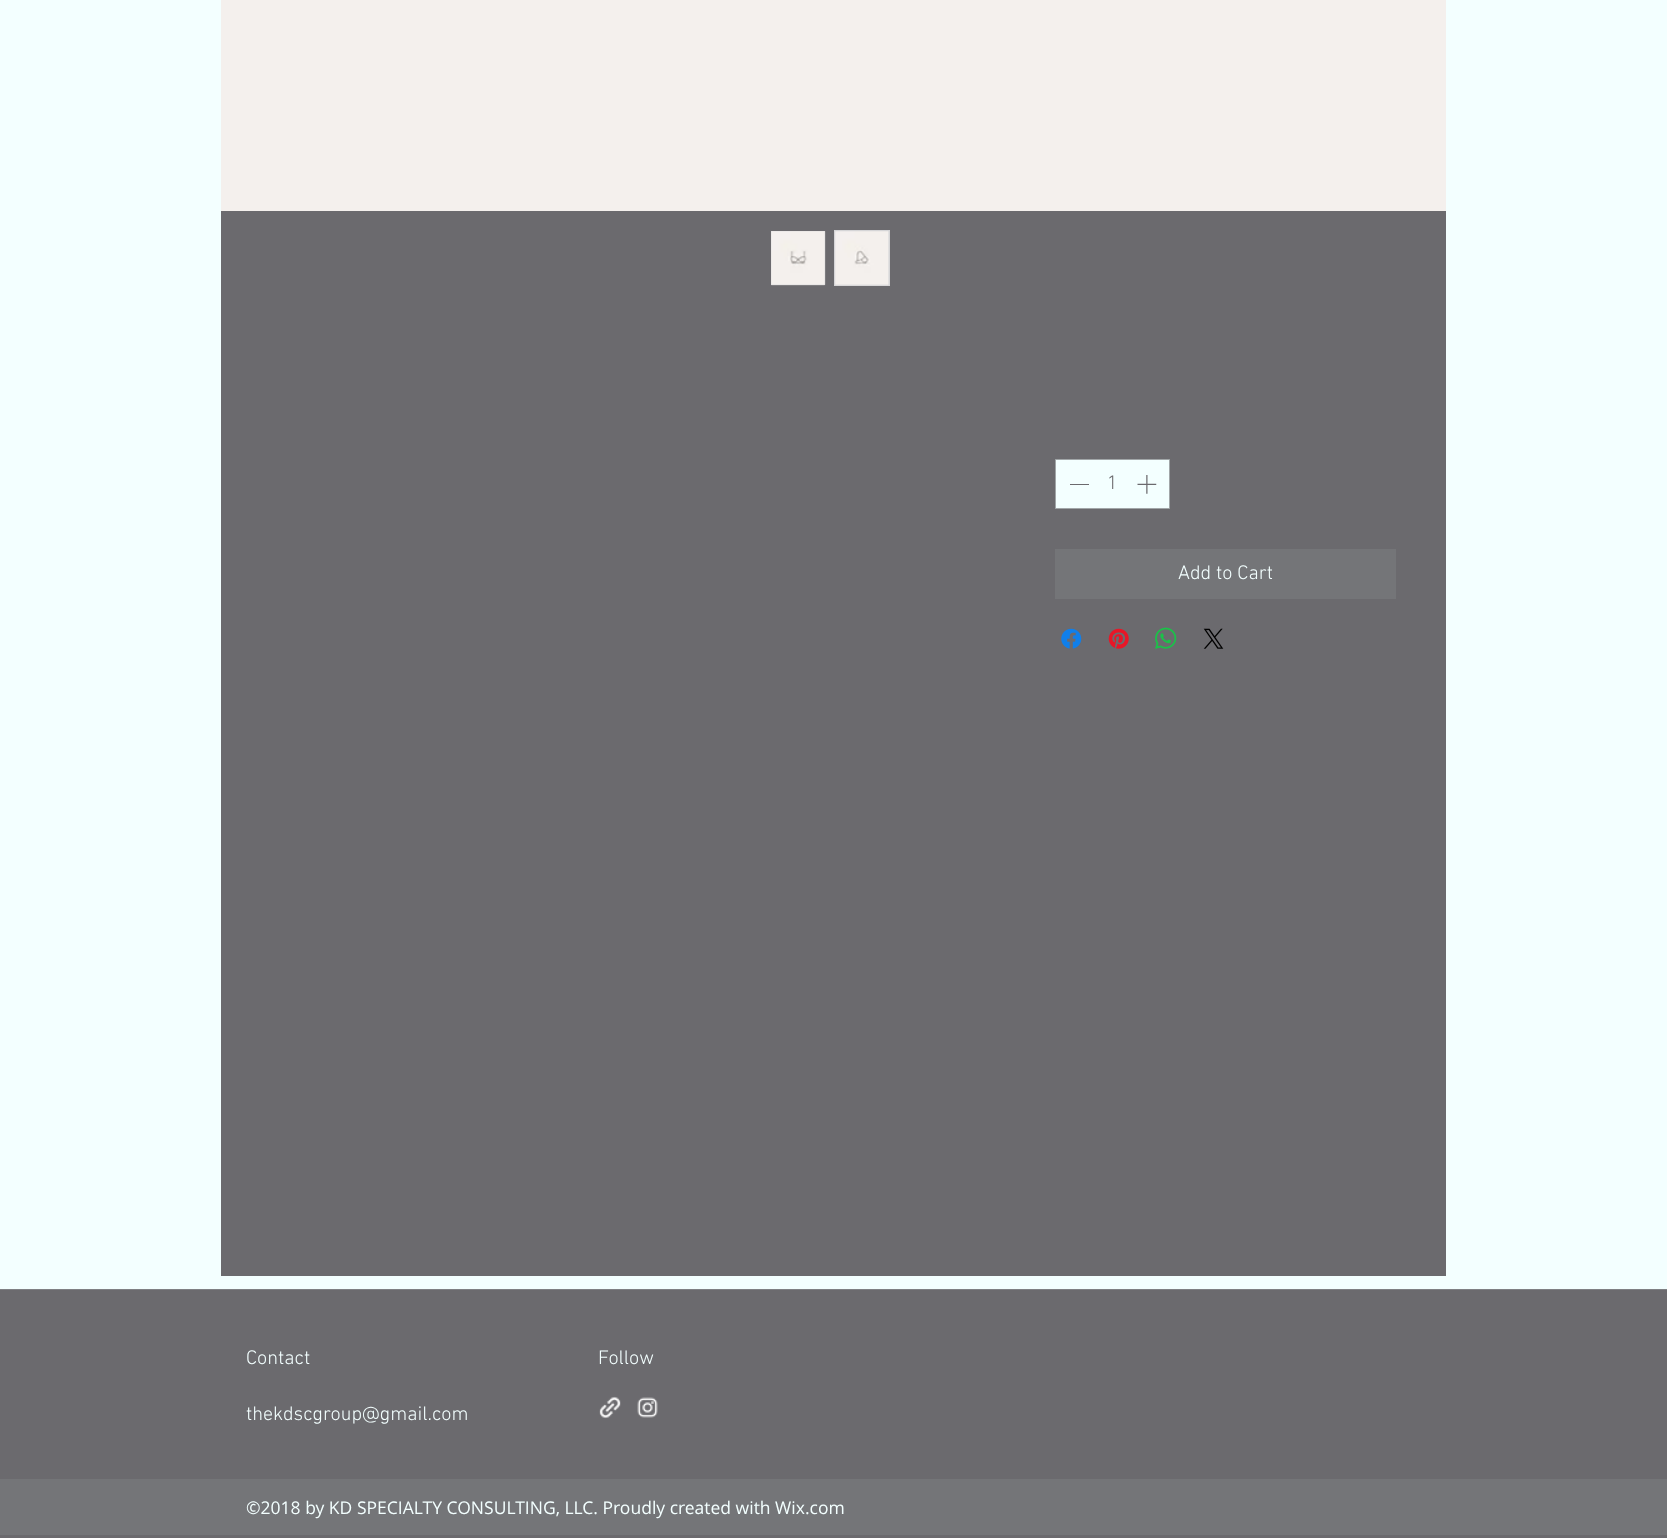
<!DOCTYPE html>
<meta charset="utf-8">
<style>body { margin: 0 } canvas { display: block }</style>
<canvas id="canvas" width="1667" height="1538"></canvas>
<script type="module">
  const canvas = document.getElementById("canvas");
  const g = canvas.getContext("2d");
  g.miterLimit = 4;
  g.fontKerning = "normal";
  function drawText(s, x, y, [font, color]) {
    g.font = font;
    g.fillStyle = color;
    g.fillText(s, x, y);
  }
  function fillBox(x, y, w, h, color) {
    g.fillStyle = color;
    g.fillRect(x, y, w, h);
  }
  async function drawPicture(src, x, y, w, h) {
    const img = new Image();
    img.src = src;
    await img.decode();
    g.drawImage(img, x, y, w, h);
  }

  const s1 = ["300 20px 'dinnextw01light'", "#6B6A6E"];
  const s2 = ["300 20px 'dinnextw01light'", "#F3FFFF"];
  const s3 = ["17.5px Open Sans", "#F3FFFF"];

  fillBox(0, 0, 1667, 1538, "#F3FFFF");
  fillBox(221, 211, 1225, 1065, "#6B6A6E");
  fillBox(221, 0, 1225, 211, "#F4F0ED");
  fillBox(771, 231, 54, 54, "#D5D5D7");
  await drawPicture("pic1.png", 771, 231, 55, 55);
  fillBox(834, 230, 56, 56, "#D5D5D7");
  await drawPicture("pic2.png", 835, 231, 54, 55);
  g.fillStyle = "#F3FFFF";
  g.beginPath();
  g.rect(1055.5, 459.5, 114, 49);
  g.fill();
  g.strokeStyle = "#A1A6A8";
  g.stroke();
  fillBox(1070, 484, 19, 1, "#6B6A6E");
  drawText("1", 1107, 489, s1);
  await drawPicture("pic3.png", 1137, 475, 20, 19);
  fillBox(1055, 549, 341, 50, "#747578");
  drawText("Add to Cart", 1178, 579, s2);
  await drawPicture("pic4.png", 1061, 628, 21, 21);
  await drawPicture("pic5.png", 1108, 628, 21, 21);
  await drawPicture("pic6.png", 1155, 627, 22, 22);
  await drawPicture("pic7.png", 1203, 628, 21, 21);
  fillBox(0, 1290, 1667, 248, "#6B6A6E");
  fillBox(0, 1289, 1667, 1, "#7F8084");
  drawText("Contact", 246, 1364, s2);
  drawText("Follow", 598, 1364, s2);
  drawText("thekdscgroup@gmail.com", 246, 1420, s2);
  await drawPicture("pic8.png", 599, 1396, 22, 23);
  await drawPicture("pic9.png", 637, 1397, 21, 21);
  fillBox(0, 1479, 1667, 56, "#747578");
  drawText("©2018 by KD SPECIALTY CONSULTING, LLC. Proudly created with Wix.com", 246, 1514, s3);
</script>
